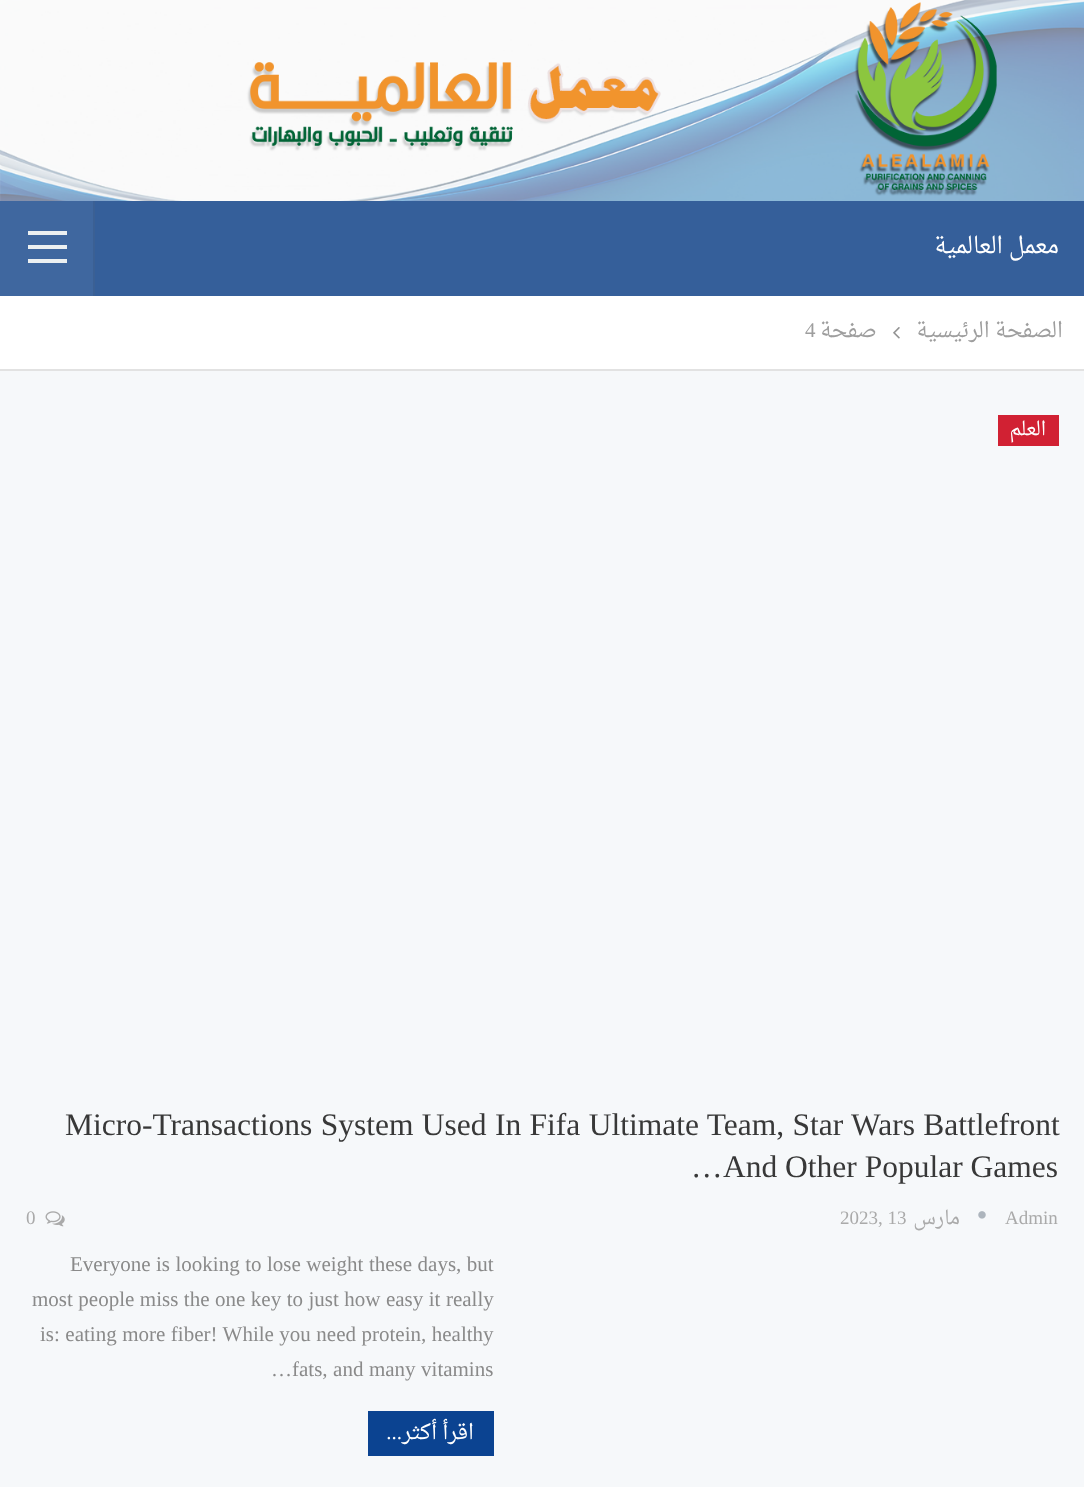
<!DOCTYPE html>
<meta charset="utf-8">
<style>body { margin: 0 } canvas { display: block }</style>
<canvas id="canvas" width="1084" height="1487"></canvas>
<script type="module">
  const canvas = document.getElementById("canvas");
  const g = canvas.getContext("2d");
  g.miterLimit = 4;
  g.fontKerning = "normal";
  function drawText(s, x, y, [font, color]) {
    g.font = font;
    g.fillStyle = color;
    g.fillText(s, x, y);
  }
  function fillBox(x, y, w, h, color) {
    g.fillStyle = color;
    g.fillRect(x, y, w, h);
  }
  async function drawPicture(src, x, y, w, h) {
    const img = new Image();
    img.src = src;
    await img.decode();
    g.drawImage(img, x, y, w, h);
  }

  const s1 = ["22.75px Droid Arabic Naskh", "#FFFFFF"];
  const s2 = ["21px Liberation Serif", "#9E9E9E"];
  const s3 = ["21px Droid Arabic Naskh", "#9E9E9E"];
  const s4 = ["19px Droid Arabic Naskh", "#FFFFFF"];
  const s5 = ["31.5px Liberation Serif", "#383838"];
  const s6 = ["19px Liberation Serif", "#AAAAAA"];
  const s7 = ["19px Droid Arabic Naskh", "#AAAAAA"];
  const s8 = ["21px Liberation Serif", "#8A8A8A"];
  const s9 = ["21px Liberation Serif", "#FFFFFF"];
  const s10 = ["21px Droid Arabic Naskh", "#FFFFFF"];

  fillBox(0, 0, 1084, 1487, "#FFFFFF");
  await drawPicture("pic1.png", 0, 0, 1084, 201);
  fillBox(0, 371, 1084, 1116, "#F6F8FA");
  fillBox(95, 201, 989, 95, "#355F9A");
  fillBox(0, 201, 93, 95, "#3F679F");
  fillBox(93, 201, 2, 95, "#3B6094");
  fillBox(28, 245, 39, 4, "#ECF0F1");
  fillBox(28, 231, 39, 4, "#ECF0F1");
  fillBox(28, 259, 39, 4, "#ECF0F1");
  g.direction = "rtl";
  drawText("معمل العالمية", 1059, 253, s1);
  fillBox(0, 369, 1084, 2, "#E2E2E2");
  g.direction = "ltr";
  drawText("4", 805, 337, s2);
  g.direction = "rtl";
  drawText("صفحة", 877, 337, s3);
  await drawPicture("pic2.png", 893, 327, 7, 12);
  drawText("الصفحة الرئيسية", 1063, 337, s3);
  fillBox(998, 415, 61, 31, "#D12133");
  drawText("العلم", 1046, 435, s4);
  g.wordSpacing = "0.5px";
  g.direction = "ltr";
  drawText("Micro-Transactions System Used In Fifa Ultimate Team, Star Wars Battlefront", 65, 1135, s5);
  g.wordSpacing = "0px";
  drawText("…", 691, 1177, s5);
  drawText("And Other Popular Games", 723, 1177, s5);
  drawText("0", 26, 1224, s6);
  await drawPicture("pic3.png", 45, 1211, 20, 16);
  drawText("2023, 13", 840, 1224, s6);
  g.direction = "rtl";
  drawText("مارس", 960, 1224, s7);
  await drawPicture("pic4.png", 978, 1211, 8, 8);
  g.direction = "ltr";
  drawText("Admin", 1005, 1224, s6);
  g.wordSpacing = "0.25px";
  drawText("Everyone is looking to lose weight these days, but", 70, 1271, s8);
  drawText("most people miss the one key to just how easy it really", 32, 1306, s8);
  drawText("is: eating more fiber! While you need protein, healthy", 40, 1341, s8);
  g.wordSpacing = "0px";
  drawText("…", 271, 1376, s8);
  g.wordSpacing = "0.25px";
  drawText("fats, and many vitamins", 292, 1376, s8);
  fillBox(368, 1411, 126, 45, "#0B4391");
  g.wordSpacing = "0px";
  g.direction = "rtl";
  drawText("...", 402, 1439, s9);
  drawText("اقرأ أكثر", 474, 1439, s10);
</script>
